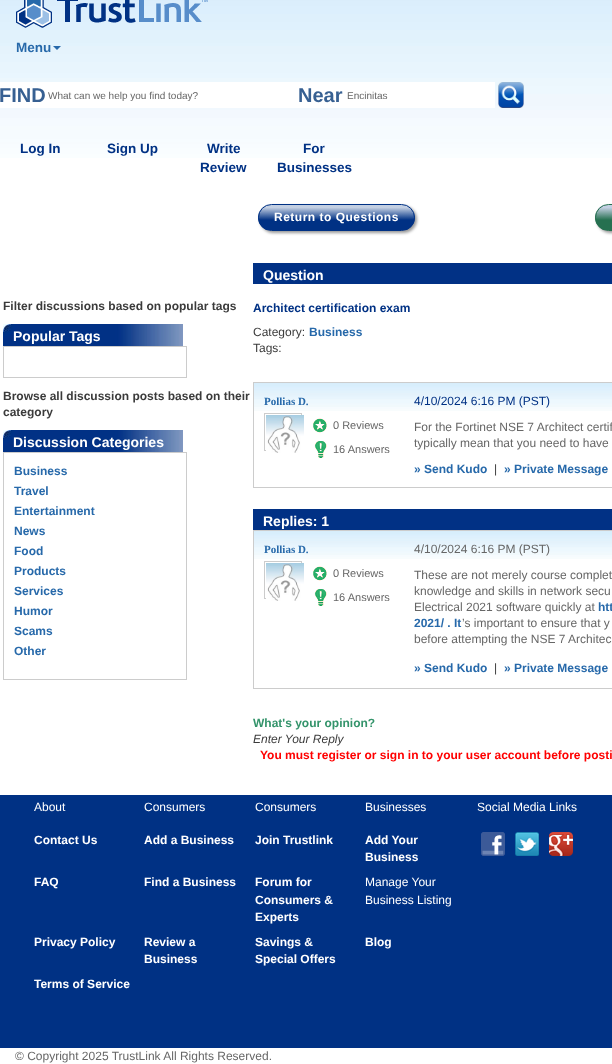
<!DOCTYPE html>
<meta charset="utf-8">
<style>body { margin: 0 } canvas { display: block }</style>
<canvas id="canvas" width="612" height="1064"></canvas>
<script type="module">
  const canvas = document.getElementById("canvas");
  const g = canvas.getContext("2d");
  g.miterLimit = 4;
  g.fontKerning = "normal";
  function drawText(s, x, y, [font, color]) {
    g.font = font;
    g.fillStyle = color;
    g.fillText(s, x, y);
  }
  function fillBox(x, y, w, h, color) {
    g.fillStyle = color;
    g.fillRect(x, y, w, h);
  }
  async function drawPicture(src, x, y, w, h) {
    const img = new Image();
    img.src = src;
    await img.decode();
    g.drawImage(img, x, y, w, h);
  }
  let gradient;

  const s1 = ["bold 13.5px Liberation Sans", "#2769AA"];
  const s2 = ["bold 20px Liberation Sans", "#376092"];
  const s3 = ["10px Liberation Sans", "#666666"];
  const s4 = ["bold 13.5px Liberation Sans", "#003184"];
  const s5 = ["bold 12px Liberation Sans", "#3B3B3B"];
  const s6 = ["bold 14px Liberation Sans", "#FFFFFF"];
  const s7 = ["bold 12px Liberation Sans", "#2769AA"];
  const s8 = ["bold 12px Liberation Sans", "#FFFFFF"];
  const s9 = ["bold 12px Liberation Sans", "#003184"];
  const s10 = ["12px Liberation Sans", "#3B3B3B"];
  const s11 = ["bold 11px Liberation Serif", "#2769AA"];
  const s12 = ["11px Liberation Sans", "#666666"];
  const s13 = ["12px Liberation Sans", "#003184"];
  const s14 = ["12px Liberation Sans", "#666666"];
  const s15 = ["bold 12px Liberation Sans", "#34946B"];
  const s16 = ["italic 12px Liberation Sans", "#3B3B3B"];
  const s17 = ["bold 12px Liberation Sans", "#FF0000"];
  const s18 = ["12px Liberation Sans", "#FFFFFF"];

  fillBox(0, 0, 612, 1064, "#FFFFFF");
  await drawPicture("pic1.png", 0, 0, 612, 158);
  await drawPicture("pic2.png", 16, 0, 192, 28);
  drawText("Menu", 16, 52, s1);
  g.beginPath();
  g.moveTo(53, 46);
  g.lineTo(61, 46);
  g.lineTo(57, 50);
  g.closePath();
  g.fill();
  fillBox(0, 82, 495, 26, "#FFFFFF");
  drawText("FIND", -1, 102, s2);
  drawText("What can we help you find today?", 48, 99, s3);
  drawText("Near", 298, 102, s2);
  drawText("Encinitas", 347, 99, s3);
  await drawPicture("pic3.png", 498, 82, 26, 26);
  drawText("Log In", 20, 153, s4);
  drawText("Sign Up", 107, 153, s4);
  drawText("Write", 207, 153, s4);
  drawText("Review", 200, 172, s4);
  drawText("For", 303, 153, s4);
  drawText("Businesses", 277, 172, s4);
  drawText("Filter discussions based on popular tags", 3, 310, s5);
  await drawPicture("pic4.png", 3, 324, 180, 22);
  drawText("Popular Tags", 13, 341, s6);
  g.strokeStyle = "#CCCCCC";
  g.strokeRect(3.5, 346.5, 183, 31);
  drawText("Browse all discussion posts based on their", 3, 400, s5);
  drawText("category", 3, 416, s5);
  await drawPicture("pic4.png", 3, 430, 180, 22);
  drawText("Discussion Categories", 13, 447, s6);
  g.strokeRect(3.5, 452.5, 183, 227);
  drawText("Business", 14, 475, s7);
  drawText("Travel", 14, 495, s7);
  drawText("Entertainment", 14, 515, s7);
  drawText("News", 14, 535, s7);
  drawText("Food", 14, 555, s7);
  drawText("Products", 14, 575, s7);
  drawText("Services", 14, 595, s7);
  drawText("Humor", 14, 615, s7);
  drawText("Scams", 14, 635, s7);
  drawText("Other", 14, 655, s7);
  g.fillStyle = "rgba(0, 0, 0, 0.4)";
  g.filter = "blur(1.5px)";
  g.beginPath();
  g.roundRect(260, 206, 157, 27, 13.5);
  g.fill();
  g.filter = "none";
  g.save();
  g.beginPath();
  g.roundRect(258, 204, 157, 27, 13.5);
  g.clip();
  gradient = g.createLinearGradient(337, 205, 337, 230);
  gradient.addColorStop(0.1, "#C3CFE2");
  gradient.addColorStop(0.6, "#003184");
  g.fillStyle = gradient;
  g.fillRect(258, 205, 157, 25);
  g.restore();
  g.beginPath();
  g.roundRect(258.5, 204.5, 156, 26, 13);
  g.strokeStyle = "#003184";
  g.stroke();
  g.letterSpacing = "0.5px";
  drawText("Return to Questions", 274, 221, s8);
  g.fillStyle = "rgba(0, 0, 0, 0.4)";
  g.filter = "blur(1.5px)";
  g.beginPath();
  g.roundRect(597, 206, 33, 27, 13.5);
  g.fill();
  g.filter = "none";
  g.save();
  g.beginPath();
  g.roundRect(595, 204, 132, 27, 13.5);
  g.clip();
  gradient = g.createLinearGradient(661, 205, 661, 230);
  gradient.addColorStop(0.1, "#C3CFE2");
  gradient.addColorStop(0.6, "#267050");
  g.fillStyle = gradient;
  g.fillRect(595, 205, 17, 25);
  g.restore();
  g.beginPath();
  g.roundRect(595.5, 204.5, 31, 26, 13);
  g.strokeStyle = "#267050";
  g.stroke();
  fillBox(253, 263, 359, 21, "#013185");
  g.letterSpacing = "0px";
  drawText("Question", 263, 280, s6);
  drawText("Architect certification exam", 253, 312, s9);
  drawText("Category:", 253, 336, s10);
  drawText("Business", 309, 336, s7);
  drawText("Tags:", 253, 352, s10);
  await drawPicture("pic5.png", 254, 383, 358, 28);
  g.strokeStyle = "#CCCCCC";
  g.strokeRect(253.5, 382.5, 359, 105);
  drawText("Pollias D.", 264, 405, s11);
  g.strokeRect(264.5, 413.5, 37, 37);
  await drawPicture("pic6.png", 266, 415, 38, 38);
  await drawPicture("pic7.png", 313, 418, 14, 15);
  drawText("0 Reviews", 333, 429, s12);
  await drawPicture("pic8.png", 314, 441, 13, 17);
  drawText("16 Answers", 333, 453, s12);
  drawText("4/10/2024 6:16 PM (PST)", 414, 405, s13);
  drawText("For the Fortinet NSE 7 Architect certif", 414, 431, s14);
  drawText("typically mean that you need to have", 414, 447, s14);
  drawText("» Send Kudo", 414, 473, s7);
  drawText("|", 494, 473, s10);
  drawText("» Private Message", 504, 473, s7);
  fillBox(253, 509, 359, 21, "#013185");
  drawText("Replies: 1", 263, 526, s6);
  await drawPicture("pic5.png", 254, 531, 358, 28);
  g.strokeRect(253.5, 530.5, 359, 158);
  drawText("Pollias D.", 264, 553, s11);
  g.strokeRect(264.5, 561.5, 37, 37);
  await drawPicture("pic6.png", 266, 563, 38, 38);
  await drawPicture("pic7.png", 313, 566, 14, 15);
  drawText("0 Reviews", 333, 577, s12);
  await drawPicture("pic8.png", 314, 589, 13, 17);
  drawText("16 Answers", 333, 601, s12);
  drawText("4/10/2024 6:16 PM (PST)", 414, 553, s14);
  drawText("These are not merely course complet", 414, 579, s14);
  drawText("knowledge and skills in network secu", 414, 595, s14);
  drawText("Electrical 2021 software quickly at", 414, 611, s14);
  drawText("htt", 598, 611, s7);
  drawText("2021/ . It", 414, 627, s7);
  drawText("’s important to ensure that y", 462, 627, s14);
  drawText("before attempting the NSE 7 Architec", 414, 643, s14);
  drawText("» Send Kudo", 414, 672, s7);
  drawText("|", 494, 672, s10);
  drawText("» Private Message", 504, 672, s7);
  drawText("What's your opinion?", 253, 727, s15);
  drawText("Enter Your Reply", 253, 743, s16);
  drawText("You must register or sign in to your user account before posti", 260, 759, s17);
  fillBox(0, 795, 612, 253, "#003184");
  drawText("About", 34, 811, s18);
  drawText("Consumers", 144, 811, s18);
  drawText("Consumers", 255, 811, s18);
  drawText("Businesses", 365, 811, s18);
  drawText("Social Media Links", 477, 811, s18);
  drawText("Contact Us", 34, 844, s8);
  drawText("Add a Business", 144, 844, s8);
  drawText("Join Trustlink", 255, 844, s8);
  drawText("Add Your", 365, 844, s8);
  drawText("Business", 365, 861, s8);
  await drawPicture("pic9.png", 481, 832, 24, 24);
  await drawPicture("pic10.png", 515, 832, 24, 24);
  await drawPicture("pic11.png", 549, 832, 24, 24);
  drawText("FAQ", 34, 886, s8);
  drawText("Find a Business", 144, 886, s8);
  drawText("Forum for", 255, 886, s8);
  drawText("Consumers &", 255, 904, s8);
  drawText("Experts", 255, 921, s8);
  drawText("Manage Your", 365, 886, s18);
  drawText("Business Listing", 365, 904, s18);
  drawText("Privacy Policy", 34, 946, s8);
  drawText("Review a", 144, 946, s8);
  drawText("Business", 144, 963, s8);
  drawText("Savings &", 255, 946, s8);
  drawText("Special Offers", 255, 963, s8);
  drawText("Blog", 365, 946, s8);
  drawText("Terms of Service", 34, 988, s8);
  drawText("© Copyright 2025 TrustLink All Rights Reserved.", 15, 1060, s14);
</script>
